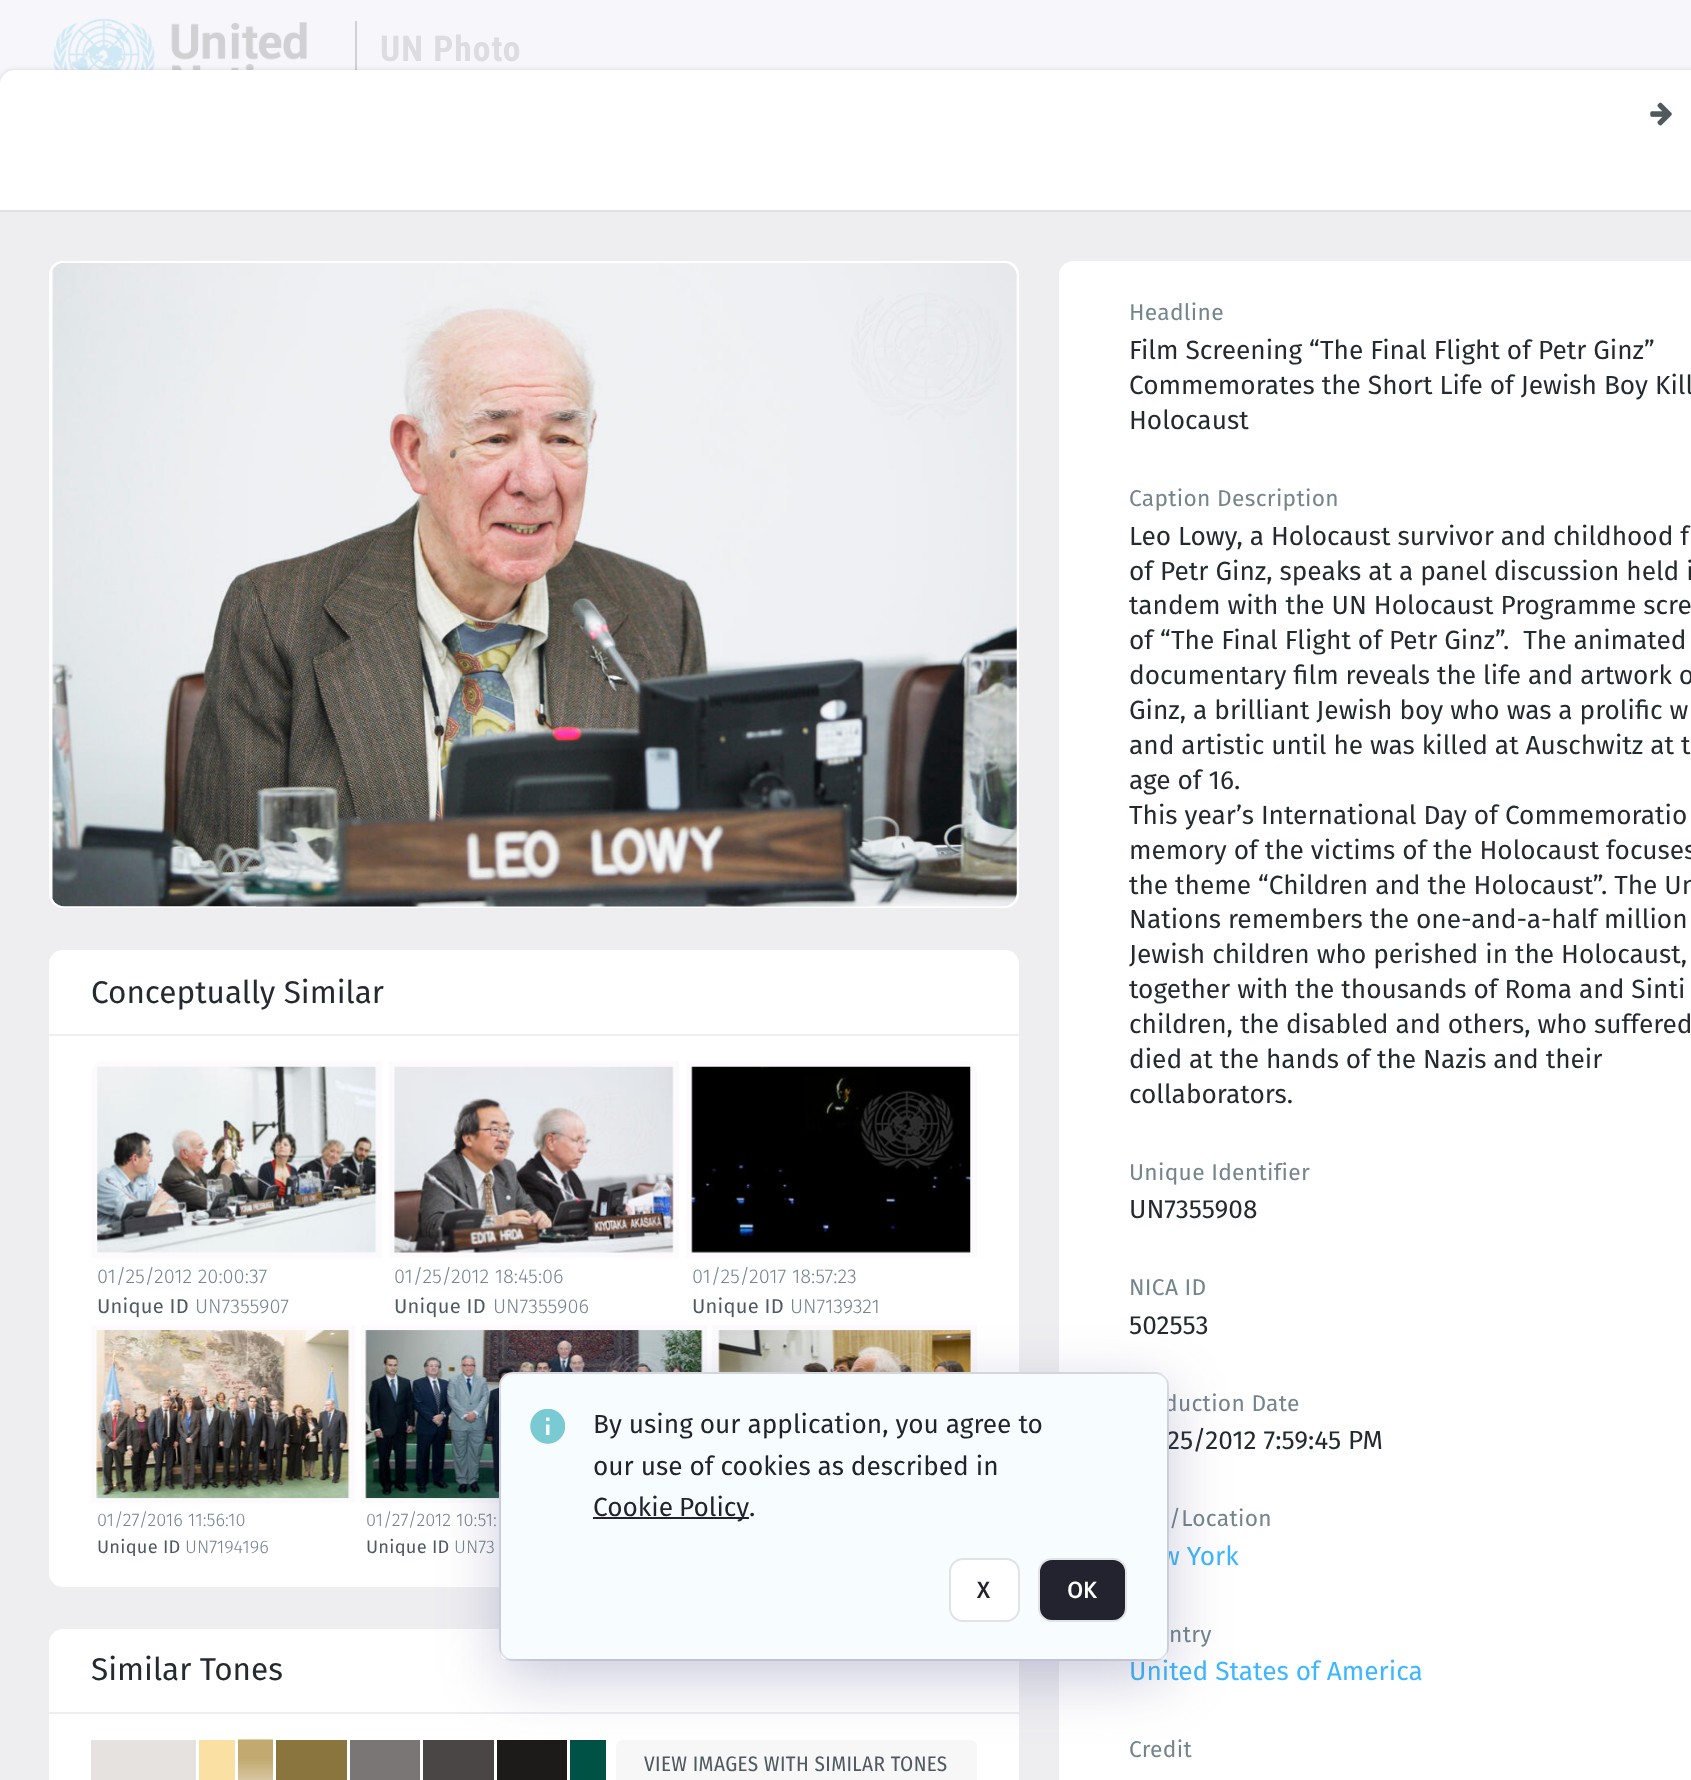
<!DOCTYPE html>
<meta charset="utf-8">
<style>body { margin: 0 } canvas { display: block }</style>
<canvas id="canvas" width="1691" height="1780"></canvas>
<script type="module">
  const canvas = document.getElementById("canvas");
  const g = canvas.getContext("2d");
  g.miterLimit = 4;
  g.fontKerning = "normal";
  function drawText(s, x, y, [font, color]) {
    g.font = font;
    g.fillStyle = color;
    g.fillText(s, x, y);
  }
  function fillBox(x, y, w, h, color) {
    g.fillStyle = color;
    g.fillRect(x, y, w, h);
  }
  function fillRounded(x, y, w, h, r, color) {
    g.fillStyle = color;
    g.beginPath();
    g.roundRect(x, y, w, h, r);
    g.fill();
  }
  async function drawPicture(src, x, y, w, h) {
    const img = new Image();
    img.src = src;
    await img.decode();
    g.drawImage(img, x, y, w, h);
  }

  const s1 = ["bold 35.5px Roboto Condensed", "#DDDDE0"];
  const s2 = ["31.5px Fira Sans", "#242B2E"];
  const s3 = ["300 20.1px Fira Sans", "#74858C"];
  const s4 = ["20.1px Fira Sans", "#4F5A5F"];
  const s5 = ["300 18.25px Fira Sans", "#74858C"];
  const s6 = ["18.25px Fira Sans", "#4F5A5F"];
  const s7 = ["21px Fira Sans Condensed", "#4F5A5F"];
  const s8 = ["22.75px Fira Sans", "#74858C"];
  const s9 = ["26.25px Fira Sans", "#242B2E"];
  const s10 = ["26.25px Fira Sans", "#3DB7FF"];
  const s11 = ["26.25px Fira Sans", "#23232F"];
  const s12 = ["bold 22.75px Fira Sans", "#23232F"];
  const s13 = ["bold 22.75px Fira Sans", "#FFFFFF"];

  fillBox(0, 0, 1691, 1780, "#F7F7FB");
  await drawPicture("pic1.png", 53, 18, 254, 52);
  fillBox(355, 21, 2, 49, "#D1D1D5");
  g.letterSpacing = "1px";
  drawText("UN Photo", 380, 61, s1);
  g.fillStyle = "rgba(0, 0, 0, 0.06)";
  g.filter = "blur(2px)";
  g.beginPath();
  g.roundRect(0, 70, 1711, 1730, 14);
  g.fill();
  g.filter = "none";
  g.fillStyle = "rgba(0, 0, 0, 0.08)";
  g.filter = "blur(2.5px)";
  g.beginPath();
  g.roundRect(0, 70, 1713, 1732, 14);
  g.fill();
  g.filter = "none";
  g.fillStyle = "#FFFFFF";
  g.beginPath();
  g.moveTo(14, 70);
  g.lineTo(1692, 70);
  g.lineTo(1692, 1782);
  g.lineTo(0, 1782);
  g.lineTo(0, 84);
  g.bezierCurveTo(0, 76.5, 6.5, 70, 14, 70);
  g.closePath();
  g.fill();
  await drawPicture("pic2.png", 1650, 102, 22, 24);
  fillBox(0, 210, 1691, 2, "#DFE0E4");
  fillBox(0, 212, 1691, 1568, "#EEEEF1");
  fillRounded(49, 261, 970, 647, 14, "#FFFFFF");
  await drawPicture("pic3.png", 52, 263, 965, 644);
  fillRounded(49, 950, 970, 637, 14, "#FFFFFF");
  g.letterSpacing = "0px";
  drawText("Conceptually Similar", 91, 1003, s2);
  g.fillStyle = "#FCFAFC";
  g.beginPath();
  g.roundRect(91, 1061, 291, 197, [14, 0, 0, 0]);
  g.fill();
  await drawPicture("pic4.png", 97, 1066, 280, 187);
  drawText("01/25/2012 20:00:37", 97, 1283, s3);
  g.letterSpacing = "0.25px";
  drawText("Unique ID", 97, 1313, s4);
  g.letterSpacing = "0px";
  drawText("UN7355907", 195, 1313, s3);
  fillBox(389, 1061, 290, 197, "#FCFAFC");
  await drawPicture("pic5.png", 394, 1066, 280, 187);
  drawText("01/25/2012 18:45:06", 394, 1283, s3);
  g.letterSpacing = "0.25px";
  drawText("Unique ID", 394, 1313, s4);
  g.letterSpacing = "0px";
  drawText("UN7355906", 493, 1313, s3);
  g.fillStyle = "#FCFAFC";
  g.beginPath();
  g.roundRect(686, 1061, 291, 197, [0, 14, 0, 0]);
  g.fill();
  await drawPicture("pic6.png", 691, 1066, 280, 187);
  drawText("01/25/2017 18:57:23", 692, 1283, s3);
  g.letterSpacing = "0.25px";
  drawText("Unique ID", 692, 1313, s4);
  g.letterSpacing = "0px";
  drawText("UN7139321", 790, 1313, s3);
  fillBox(712, 1325, 265, 47, "#FCFAFC");
  await drawPicture("pic7.png", 718, 1330, 253, 42);
  fillBox(91, 1325, 264, 178, "#FCFAFC");
  await drawPicture("pic8.png", 96, 1330, 254, 169);
  drawText("01/27/2016 11:56:10", 97, 1526, s5);
  g.save();
  g.beginPath();
  g.roundRect(91, 1061, 886, 495, 14);
  g.clip();
  g.letterSpacing = "0.25px";
  drawText("Unique ID", 97, 1553, s6);
  g.restore();
  drawText("UN7194196", 185, 1553, s5);
  fillBox(361, 1325, 346, 178, "#FCFAFC");
  await drawPicture("pic9.png", 365, 1330, 338, 169);
  drawText("01/27/2012 10:51:", 366, 1526, s5);
  g.save();
  g.beginPath();
  g.roundRect(91, 1061, 886, 495, 14);
  g.clip();
  g.letterSpacing = "0.25px";
  drawText("Unique ID", 366, 1553, s6);
  g.restore();
  drawText("UN73", 454, 1553, s5);
  fillBox(49, 1034, 970, 2, "#EEEEF1");
  g.fillStyle = "#FFFFFF";
  g.beginPath();
  g.moveTo(63, 1629);
  g.lineTo(1005, 1629);
  g.bezierCurveTo(1012.5, 1629, 1019, 1635.5, 1019, 1643);
  g.lineTo(1019, 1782);
  g.lineTo(49, 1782);
  g.lineTo(49, 1643);
  g.bezierCurveTo(49, 1635.5, 55.5, 1629, 63, 1629);
  g.closePath();
  g.fill();
  drawText("Similar Tones", 91, 1680, s2);
  fillBox(91, 1740, 105, 40, "#E5E2E0");
  fillBox(199, 1740, 36, 40, "#FBE0A3");
  await drawPicture("pic10.png", 238, 1739, 35, 41);
  fillBox(276, 1740, 71, 40, "#8A753E");
  fillBox(350, 1740, 70, 40, "#797675");
  fillBox(423, 1740, 71, 40, "#494645");
  fillBox(497, 1740, 70, 40, "#1D1B1A");
  fillBox(570, 1740, 36, 40, "#005244");
  g.fillStyle = "#F7F7F8";
  g.beginPath();
  g.moveTo(623, 1740);
  g.lineTo(970, 1740);
  g.bezierCurveTo(974, 1740, 977, 1743, 977, 1747);
  g.lineTo(977, 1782);
  g.lineTo(616, 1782);
  g.lineTo(616, 1747);
  g.bezierCurveTo(616, 1743, 619, 1740, 623, 1740);
  g.closePath();
  g.fill();
  g.letterSpacing = "0.4px";
  drawText("VIEW IMAGES WITH SIMILAR TONES", 644, 1771, s7);
  fillBox(49, 1712, 970, 2, "#EEEEF1");
  g.fillStyle = "#FFFFFF";
  g.beginPath();
  g.moveTo(1073, 261);
  g.lineTo(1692, 261);
  g.lineTo(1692, 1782);
  g.lineTo(1059, 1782);
  g.lineTo(1059, 275);
  g.bezierCurveTo(1059, 267.5, 1065.5, 261, 1073, 261);
  g.closePath();
  g.fill();
  g.letterSpacing = "0.3px";
  drawText("Headline", 1129, 320, s8);
  g.letterSpacing = "0px";
  drawText("Film Screening “The Final Flight of Petr Ginz”", 1129, 359, s9);
  drawText("Commemorates the Short Life of Jewish Boy Kill", 1129, 394, s9);
  drawText("Holocaust", 1129, 429, s9);
  g.letterSpacing = "0.3px";
  drawText("Caption Description", 1129, 506, s8);
  g.letterSpacing = "0px";
  drawText("Leo Lowy, a Holocaust survivor and childhood f", 1129, 545, s9);
  drawText("of Petr Ginz, speaks at a panel discussion held i", 1129, 580, s9);
  drawText("tandem with the UN Holocaust Programme scre", 1129, 614, s9);
  drawText("of “The Final Flight of Petr Ginz”.  The animated", 1129, 649, s9);
  drawText("documentary film reveals the life and artwork o", 1129, 684, s9);
  drawText("Ginz, a brilliant Jewish boy who was a prolific w", 1129, 719, s9);
  drawText("and artistic until he was killed at Auschwitz at t", 1129, 754, s9);
  drawText("age of 16.", 1129, 789, s9);
  drawText("This year’s International Day of Commemoratio", 1129, 824, s9);
  drawText("memory of the victims of the Holocaust focuses", 1129, 859, s9);
  drawText("the theme “Children and the Holocaust”. The Un", 1129, 894, s9);
  drawText("Nations remembers the one-and-a-half million", 1129, 928, s9);
  drawText("Jewish children who perished in the Holocaust,", 1129, 963, s9);
  drawText("together with the thousands of Roma and Sinti", 1129, 998, s9);
  drawText("children, the disabled and others, who suffered", 1129, 1033, s9);
  drawText("died at the hands of the Nazis and their", 1129, 1068, s9);
  drawText("collaborators.", 1129, 1103, s9);
  g.letterSpacing = "0.3px";
  drawText("Unique Identifier", 1129, 1180, s8);
  g.letterSpacing = "0px";
  drawText("UN7355908", 1129, 1218, s9);
  g.letterSpacing = "0.3px";
  drawText("NICA ID", 1129, 1295, s8);
  g.letterSpacing = "0px";
  drawText("502553", 1129, 1334, s9);
  g.letterSpacing = "0.3px";
  drawText("duction Date", 1164, 1411, s8);
  g.letterSpacing = "0px";
  drawText("25/2012 7:59:45 PM", 1167, 1449, s9);
  g.letterSpacing = "0.3px";
  drawText("/Location", 1169, 1526, s8);
  g.letterSpacing = "0px";
  drawText("w York", 1161, 1565, s10);
  g.letterSpacing = "0.3px";
  drawText("ntry", 1169, 1642, s8);
  g.letterSpacing = "0px";
  drawText("United States of America", 1129, 1680, s10);
  g.letterSpacing = "0.3px";
  drawText("Credit", 1129, 1757, s8);
  g.fillStyle = "#F7FDFE";
  g.beginPath();
  g.roundRect(500, 1373, 668, 287, 13);
  g.fill();
  g.strokeStyle = "#E2E2E9";
  g.lineWidth = 2;
  g.stroke();
  g.save();
  g.beginPath();
  g.moveTo(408, 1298);
  g.lineTo(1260, 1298);
  g.lineTo(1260, 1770);
  g.lineTo(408, 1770);
  g.closePath();
  g.moveTo(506, 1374);
  g.lineTo(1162, 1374);
  g.bezierCurveTo(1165, 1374, 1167, 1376, 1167, 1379);
  g.lineTo(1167, 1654);
  g.bezierCurveTo(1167, 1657, 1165, 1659, 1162, 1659);
  g.lineTo(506, 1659);
  g.bezierCurveTo(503, 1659, 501, 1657, 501, 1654);
  g.lineTo(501, 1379);
  g.bezierCurveTo(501, 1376, 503, 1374, 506, 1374);
  g.closePath();
  g.clip("evenodd");
  g.fillStyle = "rgba(77, 77, 135, 0.3)";
  g.filter = "blur(30.5px)";
  g.beginPath();
  g.roundRect(501, 1391, 666, 286, 5);
  g.fill();
  g.filter = "none";
  g.restore();
  await drawPicture("pic11.png", 530, 1409, 35, 35);
  g.letterSpacing = "0px";
  drawText("By using our application, you agree to", 593, 1433, s11);
  drawText("our use of cookies as described in", 593, 1475, s11);
  fillBox(593, 1517, 156, 2, "#23232F");
  g.wordSpacing = "-1px";
  drawText("Cookie Policy", 593, 1516, s11);
  g.wordSpacing = "0px";
  drawText(".", 749, 1516, s11);
  g.fillStyle = "#FFFFFF";
  g.beginPath();
  g.roundRect(950, 1559, 69, 62, 13);
  g.fill();
  g.stroke();
  drawText("X", 977, 1598, s12);
  g.beginPath();
  g.roundRect(1039, 1559, 87, 62, 13);
  g.fill();
  g.stroke();
  drawText("OK", 1067, 1598, s13);
</script>
